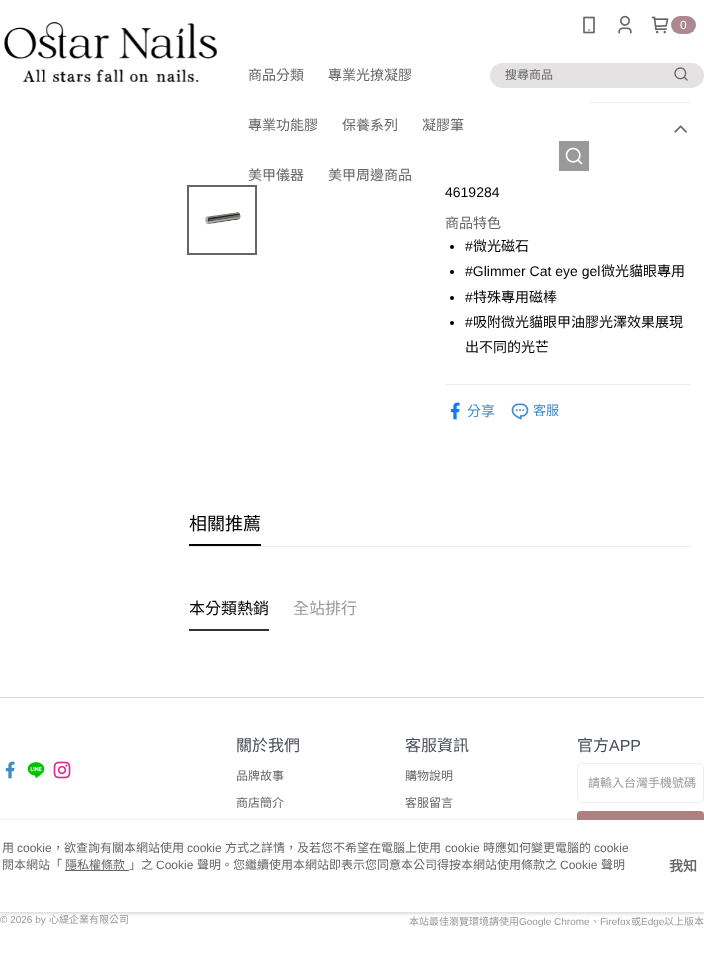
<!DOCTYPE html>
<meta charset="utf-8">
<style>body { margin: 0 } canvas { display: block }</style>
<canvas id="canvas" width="704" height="958"></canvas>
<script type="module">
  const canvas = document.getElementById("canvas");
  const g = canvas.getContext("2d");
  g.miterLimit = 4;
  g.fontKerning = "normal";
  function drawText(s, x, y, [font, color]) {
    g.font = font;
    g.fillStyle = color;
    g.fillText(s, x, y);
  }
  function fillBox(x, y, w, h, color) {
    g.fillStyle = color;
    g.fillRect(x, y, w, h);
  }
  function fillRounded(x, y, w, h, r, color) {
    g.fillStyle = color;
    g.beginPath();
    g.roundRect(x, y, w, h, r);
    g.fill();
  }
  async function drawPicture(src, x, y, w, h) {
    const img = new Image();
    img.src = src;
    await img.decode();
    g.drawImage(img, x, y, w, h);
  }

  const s1 = ["12px Liberation Sans", "#FFFFFF"];
  const s2 = ["14px Noto Sans CJK TC", "#666666"];
  const s3 = ["12px Noto Sans CJK TC", "#666666"];
  const s4 = ["14px Liberation Sans", "#000000"];
  const s5 = ["14px Noto Sans CJK TC", "#000000"];
  const s6 = ["14px Noto Sans CJK TC", "#428BCA"];
  const s7 = ["13px Noto Sans CJK TC", "#428BCA"];
  const s8 = ["18px Noto Sans CJK TC", "#000000"];
  const s9 = ["16px Noto Sans CJK TC", "#000000"];
  const s10 = ["16px Noto Sans CJK TC", "#999999"];
  const s11 = ["16px Noto Sans CJK TC", "#4A4E5C"];
  const s12 = ["16px Liberation Sans", "#4A4E5C"];
  const s13 = ["12px Noto Sans CJK TC", "#999999"];
  const s14 = ["10px Liberation Sans", "#999999"];
  const s15 = ["10px Noto Sans CJK TC", "#999999"];
  const s16 = ["12px Liberation Sans", "#666666"];
  const s17 = ["bold 14px Noto Sans CJK TC", "#666666"];

  fillBox(0, 0, 704, 958, "#FFFFFF");
  await drawPicture("pic1.png", 4, 22, 214, 60);
  await drawPicture("pic2.png", 583, 16, 12, 18);
  await drawPicture("pic3.png", 618, 15, 14, 19);
  await drawPicture("pic4.png", 651, 16, 18, 18);
  fillRounded(671, 16, 25, 18, 9, "#AC8893");
  drawText("0", 680, 29, s1);
  drawText("商品分類", 248, 80, s2);
  drawText("專業光撩凝膠", 328, 80, s2);
  drawText("專業功能膠", 248, 130, s2);
  drawText("保養系列", 342, 130, s2);
  drawText("凝膠筆", 422, 130, s2);
  drawText("美甲儀器", 248, 180, s2);
  drawText("美甲周邊商品", 328, 180, s2);
  fillRounded(490, 63, 214, 25, 12.5, "#E4E2E2");
  drawText("搜尋商品", 505, 79, s3);
  await drawPicture("pic5.png", 674, 67, 14, 14);
  fillBox(559, 141, 30, 30, "#999999");
  await drawPicture("pic6.png", 565, 147, 18, 18);
  await drawPicture("pic7.png", 205, 212, 36, 13);
  g.strokeStyle = "#666666";
  g.lineWidth = 2;
  g.strokeRect(188, 186, 68, 68);
  fillBox(589, 102, 102, 1, "#ECEFF1");
  fillBox(445, 384, 246, 1, "#ECEFF1");
  await drawPicture("pic8.png", 674, 125, 13, 8);
  drawText("4619284", 445, 197, s4);
  drawText("商品特色", 445, 228, s2);
  g.fillStyle = "#000000";
  g.beginPath();
  g.arc(452, 247, 2, 0, Math.PI * 2);
  g.fill();
  drawText("#", 465, 251, s4);
  drawText("微光磁石", 473, 251, s5);
  g.beginPath();
  g.arc(452, 272, 2, 0, Math.PI * 2);
  g.fill();
  drawText("#Glimmer Cat eye gel", 465, 276, s4);
  drawText("微光貓眼專用", 601, 276, s5);
  g.beginPath();
  g.arc(452, 298, 2, 0, Math.PI * 2);
  g.fill();
  drawText("#", 465, 302, s4);
  drawText("特殊專用磁棒", 473, 302, s5);
  g.beginPath();
  g.arc(452, 323, 2, 0, Math.PI * 2);
  g.fill();
  drawText("#", 465, 327, s4);
  drawText("吸附微光貓眼甲油膠光澤效果展現", 473, 327, s5);
  drawText("出不同的光芒", 465, 352, s5);
  await drawPicture("pic9.png", 450, 402, 10, 18);
  drawText("分享", 467, 416, s6);
  await drawPicture("pic10.png", 511, 403, 18, 17);
  drawText("客服", 533, 415, s7);
  fillBox(189, 546, 502, 1, "#ECECEC");
  fillBox(189, 544, 72, 2, "#000000");
  drawText("相關推薦", 189, 530, s8);
  fillBox(189, 629, 80, 2, "#333333");
  drawText("本分類熱銷", 189, 614, s9);
  drawText("全站排行", 293, 614, s10);
  fillBox(0, 697, 704, 1, "#DADADA");
  await drawPicture("pic11.png", 5, 761, 10, 18);
  await drawPicture("pic12.png", 27, 762, 18, 16);
  await drawPicture("pic13.png", 53, 761, 18, 18);
  drawText("關於我們", 236, 751, s11);
  drawText("品牌故事", 236, 780, s3);
  drawText("商店簡介", 236, 807, s3);
  drawText("客服資訊", 405, 751, s11);
  drawText("購物說明", 405, 780, s3);
  drawText("客服留言", 405, 807, s3);
  drawText("官方", 577, 751, s11);
  drawText("APP", 609, 751, s12);
  g.beginPath();
  g.roundRect(577.5, 763.5, 126, 39, 4.5);
  g.strokeStyle = "#EDEDED";
  g.lineWidth = 1;
  g.stroke();
  drawText("請輸入台灣手機號碼", 588, 787, s13);
  fillRounded(577, 811, 127, 40, 4, "#AF8080");
  drawText("© 2026 by", 0, 923, s14);
  drawText("心緹企業有限公司", 49, 923, s15);
  drawText("本站最佳瀏覽環境請使用", 409, 925, s15);
  drawText("Google Chrome", 519, 925, s14);
  drawText("、", 590, 925, s15);
  drawText("Firefox", 600, 925, s14);
  drawText("或", 631, 925, s15);
  drawText("Edge", 641, 925, s14);
  drawText("以上版本", 664, 925, s15);
  g.fillStyle = "rgba(151, 151, 151, 0.5)";
  g.filter = "blur(2px)";
  g.beginPath();
  g.roundRect(-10, 821, 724, 92, 4);
  g.fill();
  g.filter = "none";
  fillBox(0, 820, 704, 92, "#FFFFFF");
  drawText("用", 2, 852, s3);
  drawText("cookie", 17, 852, s16);
  drawText("，欲查詢有關本網站使用", 52, 852, s3);
  drawText("cookie", 187, 852, s16);
  drawText("方式之詳情，及若您不希望在電腦上使用", 225, 852, s3);
  drawText("cookie", 445, 852, s16);
  drawText("時應如何變更電腦的", 483, 852, s3);
  drawText("cookie", 594, 852, s16);
  drawText("閱本網站「", 2, 869, s3);
  drawText("隱私權條款", 65, 869, s3);
  fillBox(65, 870, 64, 1, "#666666");
  drawText("」之", 129, 869, s3);
  drawText("Cookie", 156, 869, s16);
  drawText("聲明。您繼續使用本網站即表示您同意本公司得按本網站使用條款之", 197, 869, s3);
  drawText("Cookie", 560, 869, s16);
  drawText("聲明", 601, 869, s3);
  drawText("我知", 669, 871, s17);
</script>
